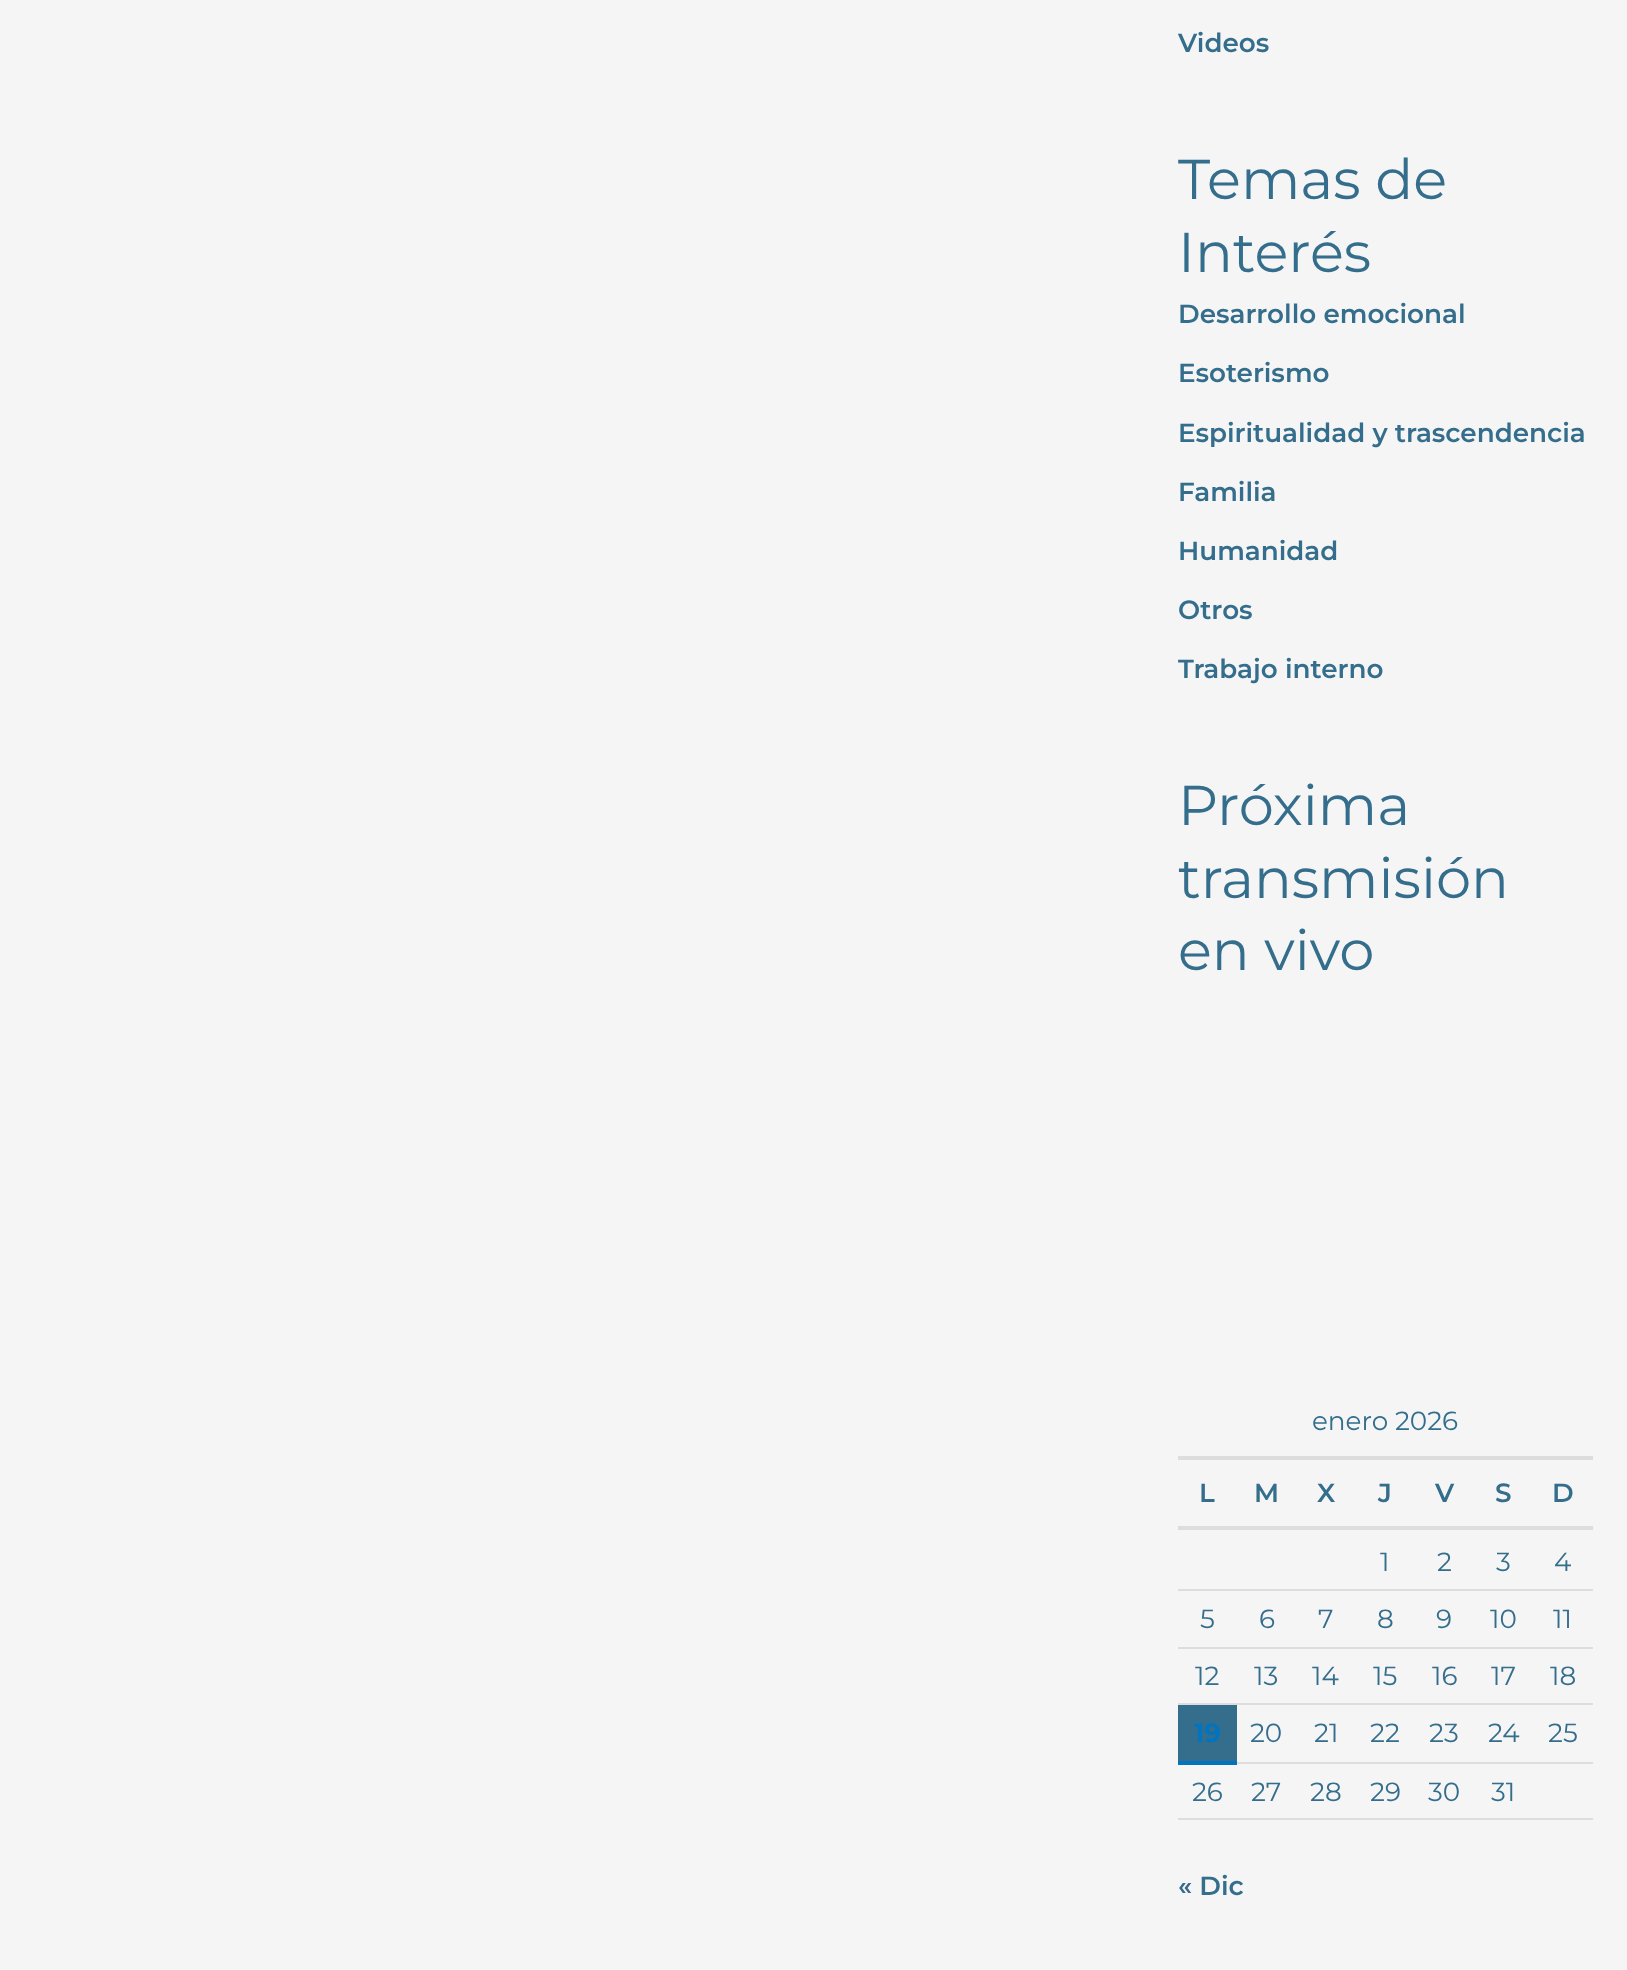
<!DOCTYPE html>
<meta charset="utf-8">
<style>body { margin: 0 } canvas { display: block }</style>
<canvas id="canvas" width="1627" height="1970"></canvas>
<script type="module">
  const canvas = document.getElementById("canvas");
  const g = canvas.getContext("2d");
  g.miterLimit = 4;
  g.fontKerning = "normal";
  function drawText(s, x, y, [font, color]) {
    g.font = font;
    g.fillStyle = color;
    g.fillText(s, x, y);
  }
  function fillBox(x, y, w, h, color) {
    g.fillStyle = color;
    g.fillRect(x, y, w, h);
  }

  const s1 = ["600 26.25px Montserrat", "#346E8C"];
  const s2 = ["56px Montserrat", "#346E8C"];
  const s3 = ["26.25px Montserrat", "#346E8C"];
  const s4 = ["bold 26.25px Montserrat", "#0274BE"];

  fillBox(0, 0, 1627, 1970, "#F5F5F5");
  drawText("Videos", 1178, 52, s1);
  drawText("Temas de", 1178, 199, s2);
  drawText("Interés", 1178, 272, s2);
  drawText("Desarrollo emocional", 1178, 323, s1);
  drawText("Esoterismo", 1178, 382, s1);
  drawText("Espiritualidad y trascendencia", 1178, 442, s1);
  drawText("Familia", 1178, 501, s1);
  drawText("Humanidad", 1178, 560, s1);
  drawText("Otros", 1178, 619, s1);
  drawText("Trabajo interno", 1178, 678, s1);
  drawText("Próxima", 1178, 825, s2);
  drawText("transmisión", 1178, 898, s2);
  drawText("en vivo", 1178, 970, s2);
  drawText("enero 2026", 1312, 1430, s3);
  fillBox(1178, 1456, 415, 4, "#DDDDDD");
  fillBox(1178, 1526, 415, 4, "#DDDDDD");
  drawText("L", 1199, 1502, s1);
  drawText("M", 1254, 1502, s1);
  drawText("X", 1317, 1502, s1);
  drawText("J", 1378, 1502, s1);
  drawText("V", 1435, 1502, s1);
  drawText("S", 1495, 1502, s1);
  drawText("D", 1552, 1502, s1);
  drawText("1", 1380, 1571, s3);
  drawText("2", 1437, 1571, s3);
  drawText("3", 1496, 1571, s3);
  drawText("4", 1554, 1571, s3);
  fillBox(1178, 1589, 415, 2, "#DDDDDD");
  fillBox(1178, 1647, 415, 2, "#DDDDDD");
  drawText("5", 1200, 1628, s3);
  drawText("6", 1259, 1628, s3);
  drawText("7", 1318, 1628, s3);
  drawText("8", 1377, 1628, s3);
  drawText("9", 1436, 1628, s3);
  drawText("10", 1490, 1628, s3);
  drawText("11", 1553, 1628, s3);
  fillBox(1178, 1703, 415, 2, "#DDDDDD");
  drawText("12", 1195, 1685, s3);
  drawText("13", 1254, 1685, s3);
  drawText("14", 1312, 1685, s3);
  drawText("15", 1373, 1685, s3);
  drawText("16", 1432, 1685, s3);
  drawText("17", 1491, 1685, s3);
  drawText("18", 1550, 1685, s3);
  fillBox(1178, 1705, 59, 56, "#346E8C");
  fillBox(1178, 1761, 59, 4, "#0274BE");
  drawText("19", 1194, 1742, s4);
  fillBox(1237, 1762, 356, 2, "#DDDDDD");
  drawText("20", 1250, 1742, s3);
  drawText("21", 1314, 1742, s3);
  drawText("22", 1370, 1742, s3);
  drawText("23", 1429, 1742, s3);
  drawText("24", 1488, 1742, s3);
  drawText("25", 1548, 1742, s3);
  fillBox(1178, 1818, 415, 2, "#DDDDDD");
  drawText("26", 1192, 1801, s3);
  drawText("27", 1251, 1801, s3);
  drawText("28", 1310, 1801, s3);
  drawText("29", 1370, 1801, s3);
  drawText("30", 1428, 1801, s3);
  drawText("31", 1491, 1801, s3);
  drawText("« Dic", 1178, 1895, s1);
</script>
